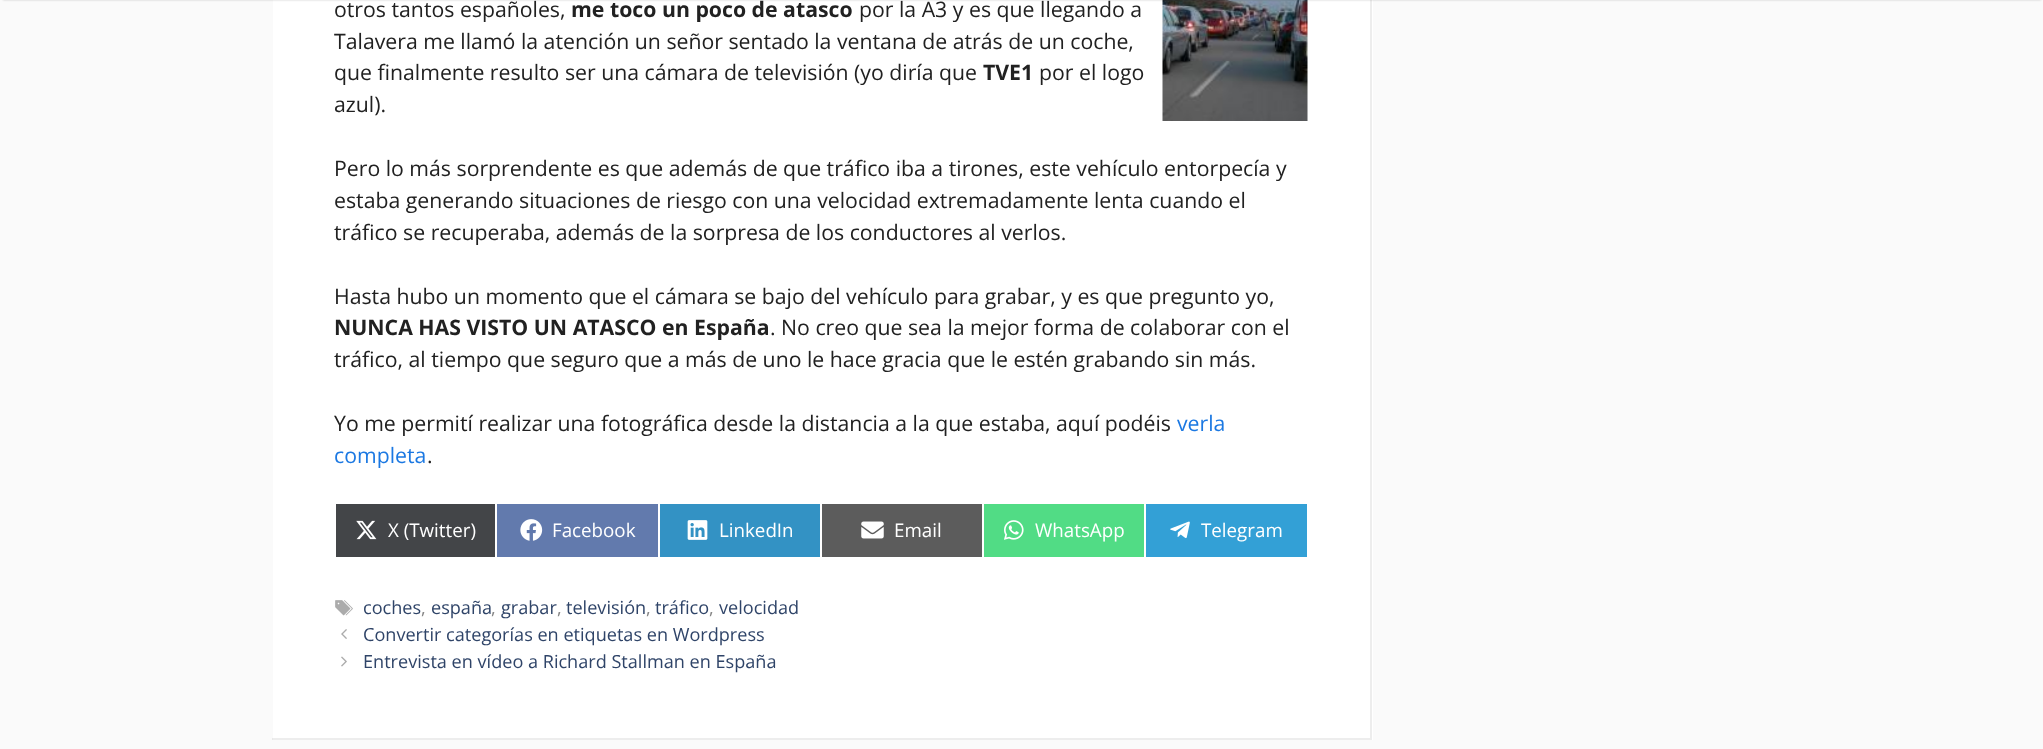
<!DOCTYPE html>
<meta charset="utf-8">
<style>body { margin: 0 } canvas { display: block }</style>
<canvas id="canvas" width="2043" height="749"></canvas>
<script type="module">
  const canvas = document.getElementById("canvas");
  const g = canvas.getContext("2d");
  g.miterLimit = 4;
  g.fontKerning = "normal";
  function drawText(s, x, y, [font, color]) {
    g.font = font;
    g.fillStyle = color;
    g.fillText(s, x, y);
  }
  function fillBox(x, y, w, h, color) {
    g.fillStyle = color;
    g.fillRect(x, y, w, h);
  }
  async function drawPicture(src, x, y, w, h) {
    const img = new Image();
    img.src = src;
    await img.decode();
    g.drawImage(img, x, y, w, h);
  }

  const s1 = ["21.25px Open Sans", "#212121"];
  const s2 = ["bold 21.25px Open Sans", "#212121"];
  const s3 = ["21.25px Open Sans", "#1B78E2"];
  const s4 = ["18.75px Open Sans", "#FFFFFF"];
  const s5 = ["18.1px Open Sans", "#2F4468"];
  const s6 = ["18.1px Open Sans", "#878787"];

  fillBox(0, 0, 2043, 749, "#FAFAFA");
  fillBox(273, 0, 1100, 740, "#FFFFFF");
  g.fillStyle = "#EDEDED";
  g.beginPath();
  g.moveTo(1372, -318);
  g.lineTo(1372, 740);
  g.lineTo(1370, 738);
  g.lineTo(1370, -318);
  g.closePath();
  g.fill();
  await drawPicture("pic1.png", 1162, 0, 146, 121);
  g.fillStyle = "rgba(0, 0, 0, 0.2)";
  g.filter = "blur(1px)";
  g.beginPath();
  g.rect(3, -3, 2038, 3);
  g.fill();
  g.filter = "none";
  g.fillStyle = "rgba(0, 0, 0, 0.07)";
  g.beginPath();
  g.moveTo(1372, 740);
  g.lineTo(272, 740);
  g.lineTo(272, 738);
  g.lineTo(1370, 738);
  g.closePath();
  g.fill();
  drawText("otros tantos españoles,", 334, 17, s1);
  drawText("me toco un poco de atasco", 571, 17, s2);
  drawText("por la A3 y es que llegando a", 859, 17, s1);
  drawText("Talavera me llamó la atención un señor sentado la ventana de atrás de un coche,", 334, 49, s1);
  drawText("que finalmente resulto ser una cámara de televisión (yo diría que", 334, 80, s1);
  drawText("TVE1", 983, 80, s2);
  drawText("por el logo", 1039, 80, s1);
  drawText("azul).", 334, 112, s1);
  drawText("Pero lo más sorprendente es que además de que tráfico iba a tirones, este vehículo entorpecía y", 334, 176, s1);
  drawText("estaba generando situaciones de riesgo con una velocidad extremadamente lenta cuando el", 334, 208, s1);
  drawText("tráfico se recuperaba, además de la sorpresa de los conductores al verlos.", 334, 240, s1);
  drawText("Hasta hubo un momento que el cámara se bajo del vehículo para grabar, y es que pregunto yo,", 334, 304, s1);
  drawText("NUNCA HAS VISTO UN ATASCO en España", 334, 335, s2);
  drawText(". No creo que sea la mejor forma de colaborar con el", 770, 335, s1);
  drawText("tráfico, al tiempo que seguro que a más de uno le hace gracia que le estén grabando sin más.", 334, 367, s1);
  drawText("Yo me permití realizar una fotográfica desde la distancia a la que estaba, aquí podéis", 334, 431, s1);
  drawText("verla", 1177, 431, s3);
  drawText("completa", 334, 463, s3);
  drawText(".", 427, 463, s1);
  fillBox(336, 504, 159, 53, "#434548");
  await drawPicture("pic2.png", 356, 520, 21, 20);
  drawText("X (Twitter)", 388, 537, s4);
  fillBox(497, 504, 161, 53, "#627AAD");
  await drawPicture("pic3.png", 520, 519, 23, 22);
  drawText("Facebook", 552, 537, s4);
  fillBox(660, 504, 160, 53, "#3392C4");
  await drawPicture("pic4.png", 687, 520, 21, 20);
  drawText("LinkedIn", 719, 537, s4);
  fillBox(822, 504, 160, 53, "#5C5C5C");
  await drawPicture("pic5.png", 861, 521, 23, 18);
  drawText("Email", 894, 537, s4);
  fillBox(984, 504, 160, 53, "#51DC85");
  await drawPicture("pic6.png", 1004, 520, 20, 20);
  drawText("WhatsApp", 1035, 537, s4);
  fillBox(1146, 504, 161, 53, "#33A0D6");
  await drawPicture("pic7.png", 1170, 521, 20, 18);
  drawText("Telegram", 1201, 537, s4);
  await drawPicture("pic8.png", 335, 600, 18, 16);
  drawText("coches", 363, 614, s5);
  drawText(",", 421, 614, s6);
  drawText("españa", 431, 614, s5);
  drawText(",", 491, 614, s6);
  drawText("grabar", 501, 614, s5);
  drawText(",", 557, 614, s6);
  drawText("televisión", 566, 614, s5);
  drawText(",", 646, 614, s6);
  drawText("tráfico", 655, 614, s5);
  drawText(",", 709, 614, s6);
  drawText("velocidad", 719, 614, s5);
  await drawPicture("pic9.png", 341, 629, 6, 10);
  drawText("Convertir categorías en etiquetas en Wordpress", 363, 641, s5);
  await drawPicture("pic10.png", 341, 656, 6, 11);
  drawText("Entrevista en vídeo a Richard Stallman en España", 363, 668, s5);
</script>
